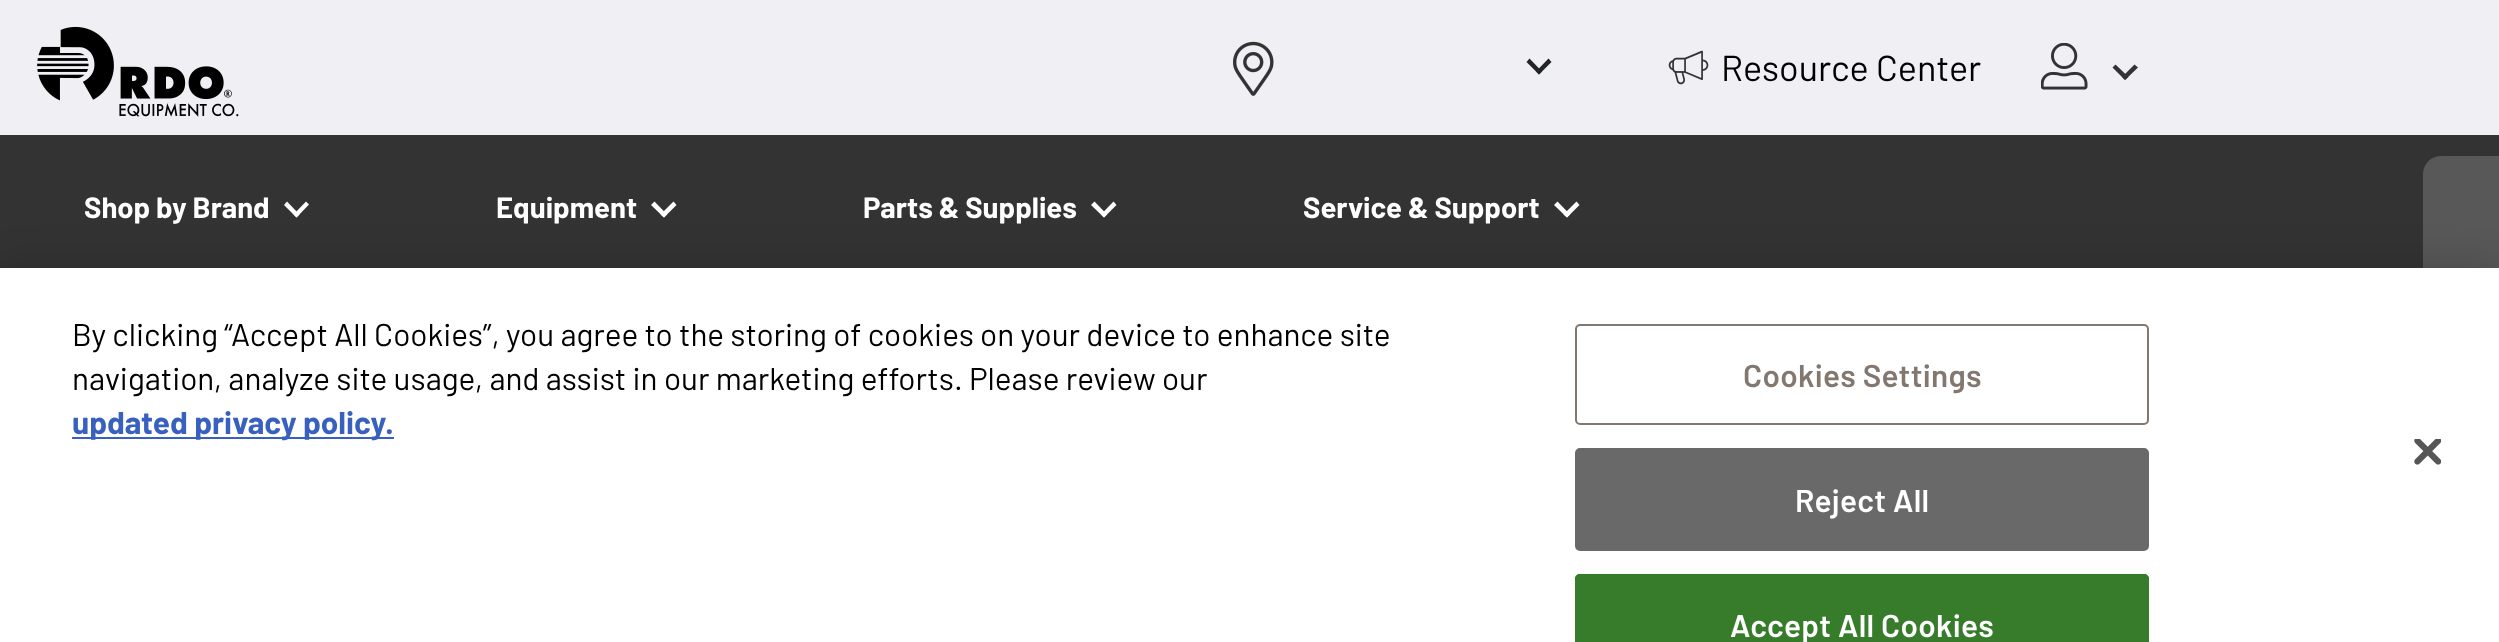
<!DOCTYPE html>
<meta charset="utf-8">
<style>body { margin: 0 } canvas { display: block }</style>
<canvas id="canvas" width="2499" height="642"></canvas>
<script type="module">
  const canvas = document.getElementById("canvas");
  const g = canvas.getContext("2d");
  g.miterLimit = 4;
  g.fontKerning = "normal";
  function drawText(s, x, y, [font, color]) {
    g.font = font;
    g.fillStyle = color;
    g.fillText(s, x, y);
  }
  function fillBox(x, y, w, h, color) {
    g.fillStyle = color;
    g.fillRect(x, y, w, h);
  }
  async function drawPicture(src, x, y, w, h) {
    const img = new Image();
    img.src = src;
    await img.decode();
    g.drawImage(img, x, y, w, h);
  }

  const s1 = ["36px Barlow", "#000000"];
  const s2 = ["bold 29.25px Barlow", "#FFFFFF"];
  const s3 = ["31.5px Barlow", "#000000"];
  const s4 = ["bold 31.5px Barlow", "#3860BE"];
  const s5 = ["600 31.5px Barlow", "#83786F"];
  const s6 = ["600 31.5px Barlow", "#FFFFFF"];

  fillBox(0, 0, 2499, 642, "#EFEFF4");
  await drawPicture("pic1.png", 37, 26, 202, 91);
  await drawPicture("pic2.png", 1233, 41, 41, 55);
  g.fillStyle = "#212529";
  g.beginPath();
  g.moveTo(1548.5, 58.5);
  g.lineTo(1551.5, 62);
  g.lineTo(1539, 74.5);
  g.lineTo(1536, 71.5);
  g.closePath();
  g.fill();
  g.beginPath();
  g.moveTo(1529.5, 58.5);
  g.lineTo(1542, 71.5);
  g.lineTo(1539, 74.5);
  g.lineTo(1526.5, 62);
  g.closePath();
  g.fill();
  await drawPicture("pic3.png", 1668, 50, 41, 35);
  drawText("Resource Center", 1721, 81, s1);
  await drawPicture("pic4.png", 2041, 43, 47, 47);
  g.fillStyle = "#333333";
  g.beginPath();
  g.moveTo(2134.5, 64.5);
  g.lineTo(2138, 67.5);
  g.lineTo(2125, 80);
  g.lineTo(2122, 77);
  g.closePath();
  g.fill();
  g.beginPath();
  g.moveTo(2115.5, 64.5);
  g.lineTo(2128.5, 77);
  g.lineTo(2125, 80);
  g.lineTo(2112.5, 67.5);
  g.closePath();
  g.fill();
  fillBox(0, 135, 2499, 133, "#333333");
  drawText("Shop by Brand", 84, 218, s2);
  g.beginPath();
  g.moveTo(306, 201.5);
  g.lineTo(309, 204.5);
  g.lineTo(296.5, 217.5);
  g.lineTo(293.5, 214.5);
  g.closePath();
  g.fill();
  g.beginPath();
  g.moveTo(287, 201.5);
  g.lineTo(299.5, 214.5);
  g.lineTo(296.5, 217.5);
  g.lineTo(284, 205);
  g.closePath();
  g.fill();
  drawText("Equipment", 496, 218, s2);
  g.beginPath();
  g.moveTo(673.5, 201.5);
  g.lineTo(676.5, 205);
  g.lineTo(664, 217.5);
  g.lineTo(660.5, 214.5);
  g.closePath();
  g.fill();
  g.beginPath();
  g.moveTo(654.5, 201.5);
  g.lineTo(667, 214.5);
  g.lineTo(664, 217.5);
  g.lineTo(651, 205);
  g.closePath();
  g.fill();
  drawText("Parts & Supplies", 863, 218, s2);
  g.beginPath();
  g.moveTo(1113.5, 201.5);
  g.lineTo(1116.5, 205);
  g.lineTo(1104, 217.5);
  g.lineTo(1101, 214.5);
  g.closePath();
  g.fill();
  g.beginPath();
  g.moveTo(1094.5, 201.5);
  g.lineTo(1107, 214.5);
  g.lineTo(1104, 217.5);
  g.lineTo(1091, 205);
  g.closePath();
  g.fill();
  drawText("Service & Support", 1303, 218, s2);
  g.beginPath();
  g.moveTo(1576.5, 201.5);
  g.lineTo(1579.5, 205);
  g.lineTo(1567, 217.5);
  g.lineTo(1563.5, 214.5);
  g.closePath();
  g.fill();
  g.beginPath();
  g.moveTo(1557.5, 201.5);
  g.lineTo(1570, 214.5);
  g.lineTo(1567, 217.5);
  g.lineTo(1554, 205);
  g.closePath();
  g.fill();
  g.fillStyle = "#585858";
  g.beginPath();
  g.moveTo(2423, 469);
  g.lineTo(2423, 174);
  g.bezierCurveTo(2423, 164, 2431, 156, 2441, 156);
  g.lineTo(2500, 156);
  g.lineTo(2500, 487);
  g.lineTo(2441, 487);
  g.bezierCurveTo(2431, 487, 2423, 479, 2423, 469);
  g.closePath();
  g.fill();
  g.fillStyle = "rgba(0, 0, 0, 0.2)";
  g.filter = "blur(20px)";
  g.beginPath();
  g.rect(0, 268, 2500, 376);
  g.fill();
  g.filter = "none";
  fillBox(0, 268, 2499, 374, "#FFFFFF");
  drawText("By clicking “Accept All Cookies”, you agree to the storing of cookies on your device to enhance site", 72, 346, s3);
  drawText("navigation, analyze site usage, and assist in our marketing efforts. Please review our", 72, 390, s3);
  fillBox(72, 437, 322, 2, "#3860BE");
  drawText("updated privacy policy.", 72, 434, s4);
  g.beginPath();
  g.roundRect(1576, 325, 572, 99, 4);
  g.strokeStyle = "#83786F";
  g.lineWidth = 2;
  g.stroke();
  g.letterSpacing = "0.3px";
  drawText("Cookies Settings", 1743, 387, s5);
  g.fillStyle = "#696969";
  g.beginPath();
  g.roundRect(1576, 449, 572, 101, 4);
  g.fill();
  g.strokeStyle = "#696969";
  g.stroke();
  drawText("Reject All", 1795, 512, s6);
  g.fillStyle = "#367C2B";
  g.beginPath();
  g.moveTo(1580, 574);
  g.lineTo(2144, 574);
  g.bezierCurveTo(2147, 574, 2149, 576, 2149, 579);
  g.lineTo(2149, 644);
  g.lineTo(1575, 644);
  g.lineTo(1575, 579);
  g.bezierCurveTo(1575, 576, 1577, 574, 1580, 574);
  g.closePath();
  g.fill();
  g.beginPath();
  g.roundRect(1576, 575, 572, 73, 4);
  g.strokeStyle = "#367C2B";
  g.stroke();
  drawText("Accept All Cookies", 1730, 637, s6);
  await drawPicture("pic5.png", 2414, 439, 27, 26);
</script>
